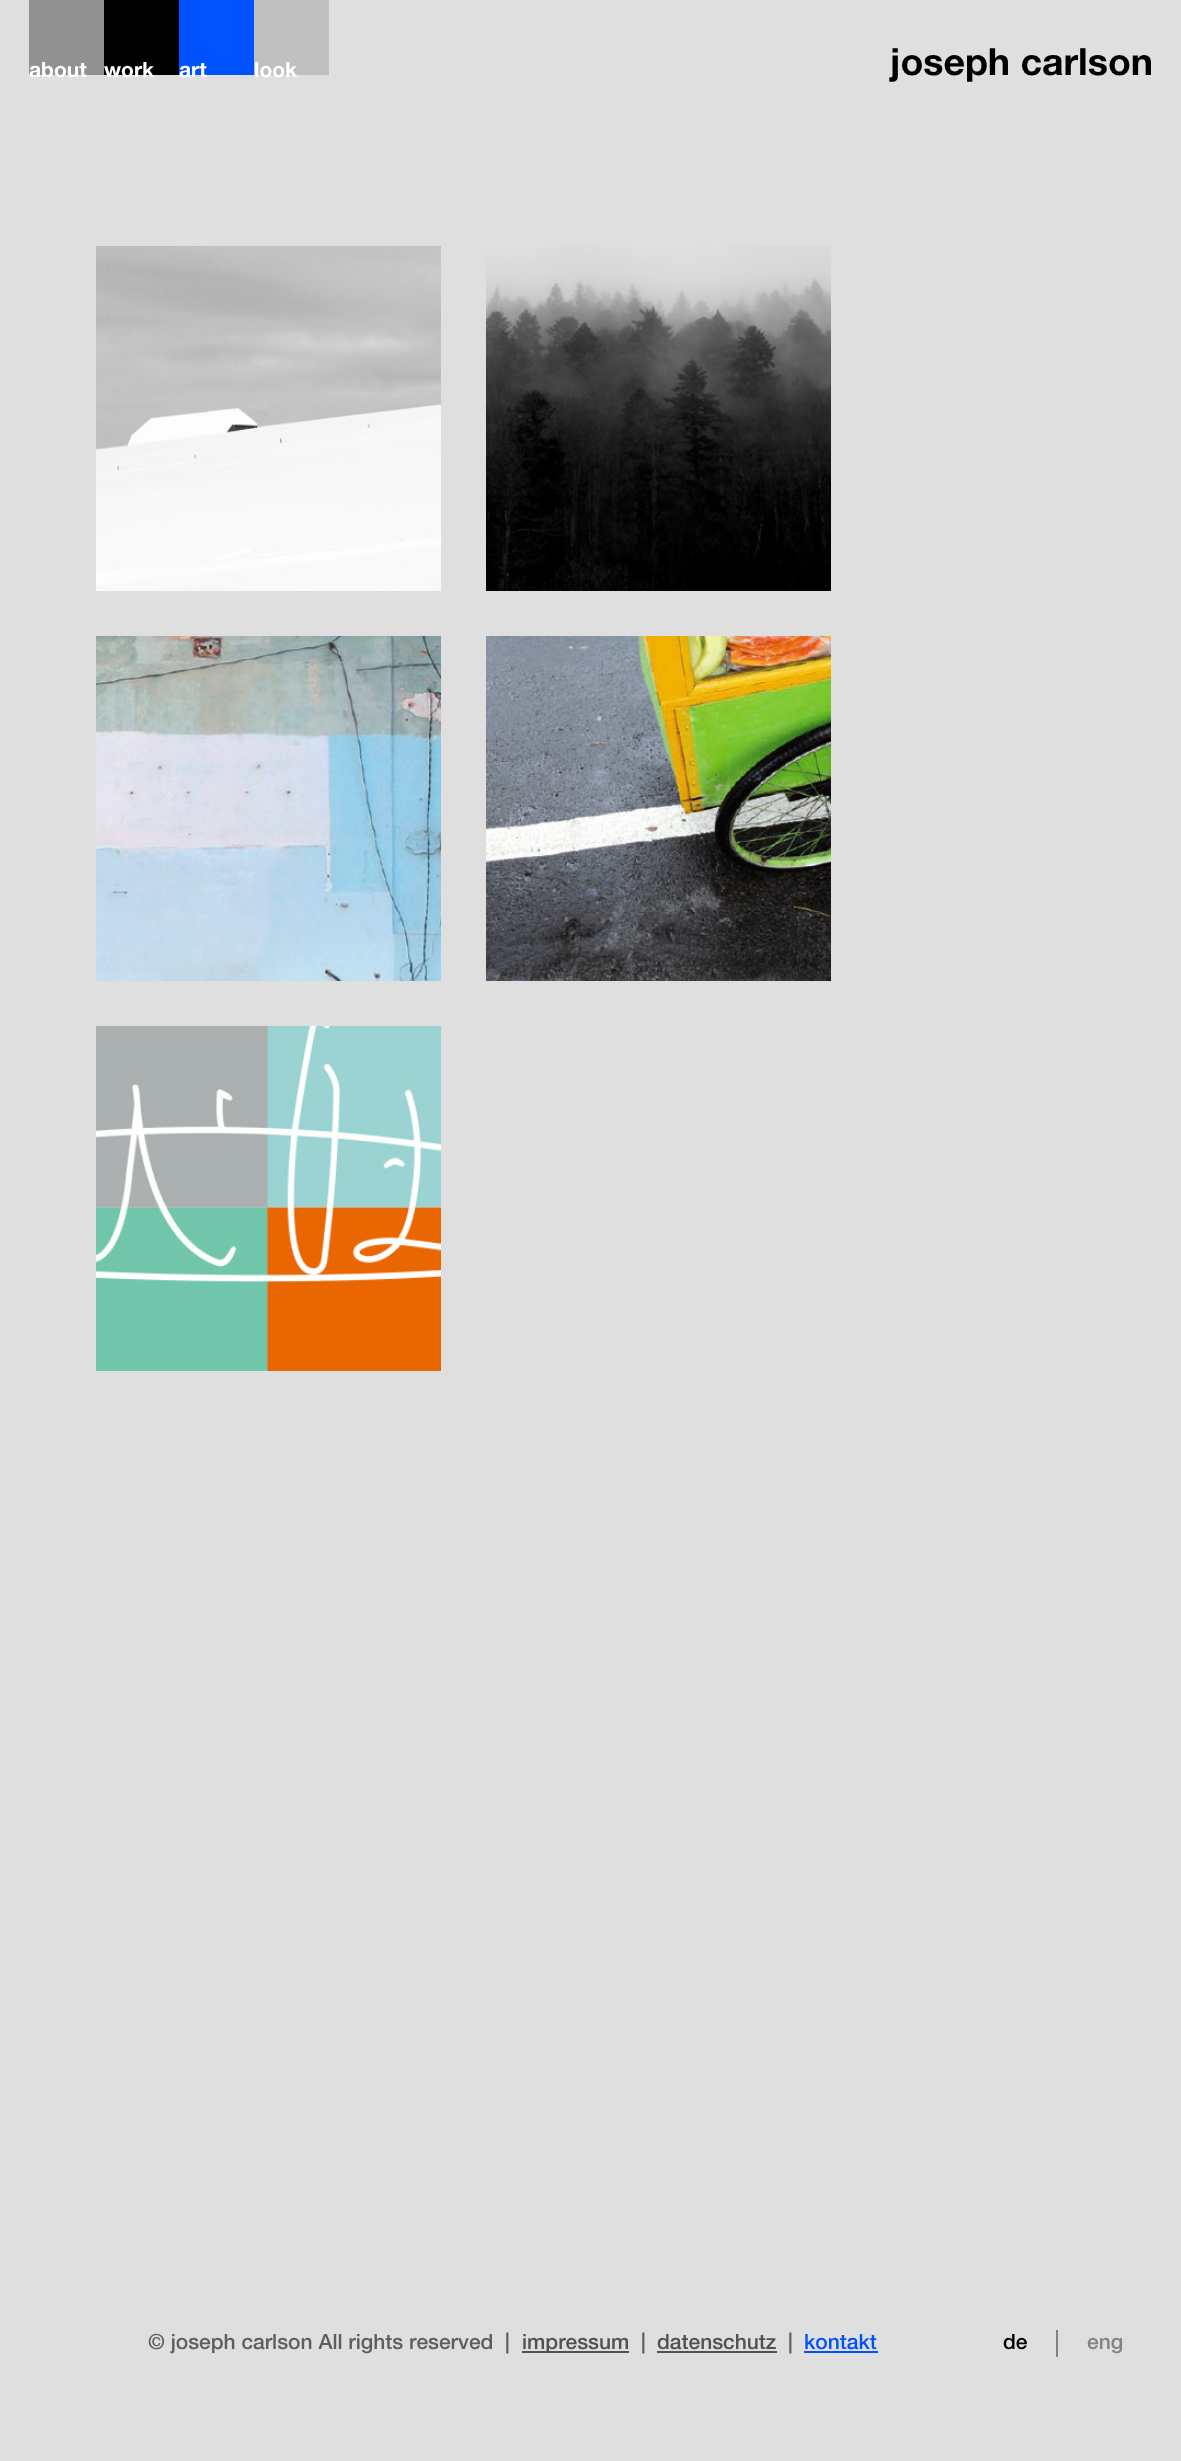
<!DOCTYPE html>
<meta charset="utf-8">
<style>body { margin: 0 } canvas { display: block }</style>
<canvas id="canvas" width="1181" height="2461"></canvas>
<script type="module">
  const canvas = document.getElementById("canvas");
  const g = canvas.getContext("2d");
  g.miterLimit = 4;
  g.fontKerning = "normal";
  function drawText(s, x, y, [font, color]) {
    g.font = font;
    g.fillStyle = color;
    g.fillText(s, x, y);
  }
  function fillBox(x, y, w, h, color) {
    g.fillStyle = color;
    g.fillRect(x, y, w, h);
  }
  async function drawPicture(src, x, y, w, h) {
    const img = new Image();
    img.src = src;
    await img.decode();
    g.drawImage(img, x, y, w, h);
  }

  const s1 = ["bold 21px Helvetica Neue", "#FFFFFF"];
  const s2 = ["bold 37.5px Helvetica Neue", "#000000"];
  const s3 = ["500 21px Helvetica Neue", "#5E5E5E"];
  const s4 = ["500 21px Helvetica Neue", "#515151"];
  const s5 = ["500 21px Helvetica Neue", "#0052FF"];
  const s6 = ["500 21px Helvetica Neue", "#000000"];
  const s7 = ["500 21px Helvetica Neue", "#818281"];

  fillBox(0, 0, 1181, 2461, "#DFDFDF");
  fillBox(29, 0, 75, 75, "#919191");
  drawText("about", 29, 77, s1);
  fillBox(104, 0, 75, 75, "#000000");
  drawText("work", 104, 77, s1);
  fillBox(179, 0, 75, 75, "#0052FF");
  drawText("art", 179, 77, s1);
  fillBox(254, 0, 75, 75, "#C0C0C0");
  drawText("look", 254, 77, s1);
  drawText("joseph carlson", 890, 75, s2);
  await drawPicture("pic1.png", 96, 246, 345, 345);
  await drawPicture("pic2.png", 486, 246, 345, 345);
  await drawPicture("pic3.png", 96, 636, 345, 345);
  await drawPicture("pic4.png", 486, 636, 345, 345);
  await drawPicture("pic5.png", 96, 1026, 345, 345);
  drawText("© joseph carlson All rights reserved", 148, 2349, s3);
  drawText("|", 505, 2349, s3);
  fillBox(522, 2351, 107, 2, "#515151");
  drawText("impressum", 522, 2349, s4);
  drawText("|", 641, 2349, s3);
  drawText("datenschutz", 657, 2349, s4);
  fillBox(657, 2351, 120, 2, "#515151");
  drawText("|", 788, 2349, s3);
  drawText("kontakt", 804, 2349, s5);
  fillBox(804, 2351, 74, 2, "#0052FF");
  drawText("de", 1003, 2349, s6);
  fillBox(1056, 2330, 2, 27, "#818281");
  drawText("eng", 1087, 2349, s7);
</script>
